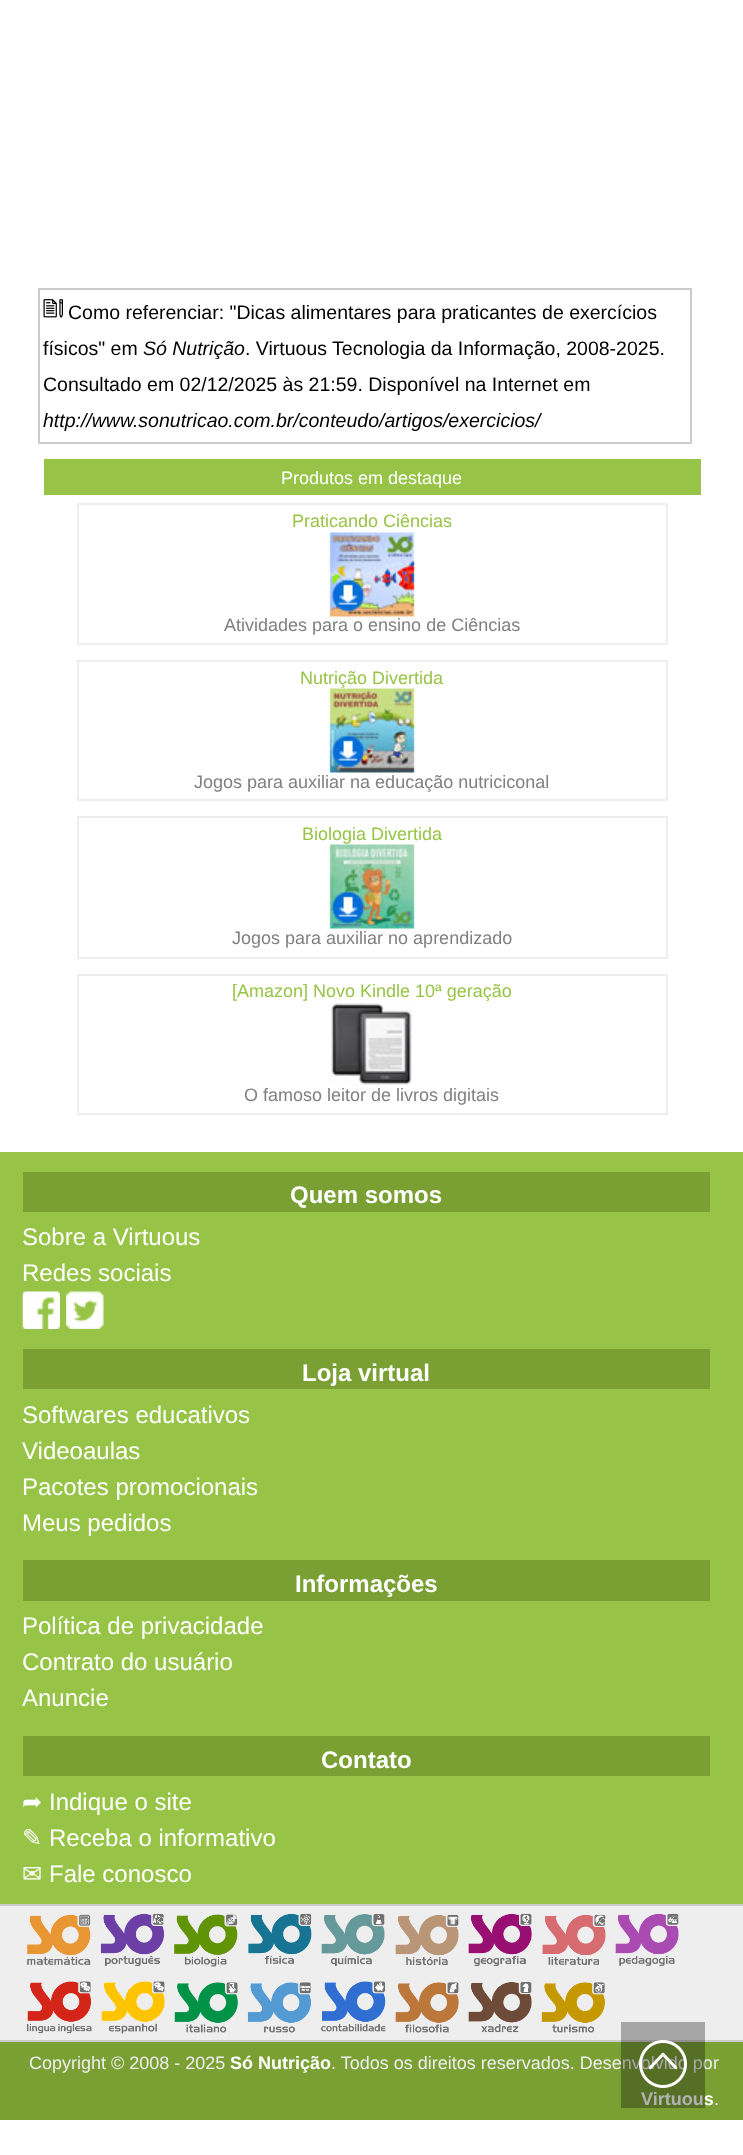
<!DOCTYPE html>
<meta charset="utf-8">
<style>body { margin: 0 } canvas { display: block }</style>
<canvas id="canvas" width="743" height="2155"></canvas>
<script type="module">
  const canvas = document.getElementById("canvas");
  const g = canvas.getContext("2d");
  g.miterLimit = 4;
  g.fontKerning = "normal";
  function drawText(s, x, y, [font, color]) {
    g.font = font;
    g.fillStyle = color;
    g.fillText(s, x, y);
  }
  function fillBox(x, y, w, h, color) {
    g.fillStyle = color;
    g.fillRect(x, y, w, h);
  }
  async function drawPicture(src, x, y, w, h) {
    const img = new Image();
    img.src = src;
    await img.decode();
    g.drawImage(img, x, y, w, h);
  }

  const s1 = ["19.5px Liberation Sans", "#000000"];
  const s2 = ["italic 19.5px Liberation Sans", "#000000"];
  const s3 = ["18px Liberation Sans", "#FFFFFF"];
  const s4 = ["18px Liberation Sans", "#97C447"];
  const s5 = ["18px Liberation Sans", "#808080"];
  const s6 = ["bold 24px Liberation Sans", "#FFFFFF"];
  const s7 = ["24px Liberation Sans", "#FFFFFF"];
  const s8 = ["24px DejaVu Sans", "#FFFFFF"];
  const s9 = ["18px Liberation Sans", "#EEEEEE"];
  const s10 = ["bold 18px Liberation Sans", "#FFFFFF"];

  fillBox(0, 0, 743, 2155, "#FFFFFF");
  g.strokeStyle = "#CCCCCC";
  g.lineWidth = 2;
  g.strokeRect(39, 289, 652, 154);
  await drawPicture("pic1.png", 43, 299, 20, 19);
  drawText("Como referenciar: \"Dicas alimentares para praticantes de exercícios", 68, 319, s1);
  drawText("físicos\" em", 43, 355, s1);
  drawText("Só Nutrição", 143, 355, s2);
  drawText(". Virtuous Tecnologia da Informação, 2008-2025.", 245, 355, s1);
  drawText("Consultado em 02/12/2025 às 21:59. Disponível na Internet em", 43, 391, s1);
  drawText("http://www.sonutricao.com.br/conteudo/artigos/exercicios/", 43, 427, s2);
  fillBox(44, 459, 657, 36, "#97C447");
  drawText("Produtos em destaque", 281, 484, s3);
  g.strokeStyle = "#EEEEEE";
  g.strokeRect(78, 504, 589, 140);
  drawText("Praticando Ciências", 292, 527, s4);
  await drawPicture("pic2.png", 329, 532, 86, 85);
  drawText("Atividades para o ensino de Ciências", 224, 631, s5);
  g.strokeRect(78, 661, 589, 139);
  drawText("Nutrição Divertida", 300, 684, s4);
  await drawPicture("pic3.png", 329, 688, 86, 85);
  drawText("Jogos para auxiliar na educação nutriciconal", 194, 788, s5);
  g.strokeRect(78, 817, 589, 141);
  drawText("Biologia Divertida", 302, 840, s4);
  await drawPicture("pic4.png", 329, 844, 86, 85);
  drawText("Jogos para auxiliar no aprendizado", 232, 944, s5);
  g.strokeRect(78, 975, 589, 139);
  drawText("[Amazon] Novo Kindle 10ª geração", 232, 997, s4);
  await drawPicture("pic5.png", 330, 1002, 84, 84);
  drawText("O famoso leitor de livros digitais", 244, 1101, s5);
  fillBox(0, 1152, 743, 752, "#97C447");
  fillBox(23, 1172, 687, 40, "#7AA034");
  drawText("Quem somos", 290, 1203, s6);
  drawText("Sobre a Virtuous", 22, 1245, s7);
  drawText("Redes sociais", 22, 1281, s7);
  await drawPicture("pic6.png", 22, 1291, 38, 38);
  await drawPicture("pic7.png", 66, 1291, 38, 38);
  fillBox(23, 1349, 687, 40, "#7AA034");
  drawText("Loja virtual", 302, 1381, s6);
  drawText("Softwares educativos", 22, 1423, s7);
  drawText("Videoaulas", 22, 1459, s7);
  drawText("Pacotes promocionais", 22, 1495, s7);
  drawText("Meus pedidos", 22, 1531, s7);
  fillBox(23, 1560, 687, 41, "#7AA034");
  drawText("Informações", 295, 1592, s6);
  drawText("Política de privacidade", 22, 1634, s7);
  drawText("Contrato do usuário", 22, 1670, s7);
  drawText("Anuncie", 22, 1706, s7);
  fillBox(23, 1736, 687, 40, "#7AA034");
  drawText("Contato", 321, 1768, s6);
  drawText("➦", 22, 1810, s8);
  drawText("Indique o site", 49, 1810, s7);
  drawText("✎", 22, 1846, s8);
  drawText("Receba o informativo", 49, 1846, s7);
  drawText("✉", 22, 1882, s8);
  drawText("Fale conosco", 49, 1882, s7);
  fillBox(0, 1906, 743, 134, "#EEEEEE");
  fillBox(0, 1904, 743, 2, "#CDCDCD");
  fillBox(0, 2040, 743, 2, "#CDCDCD");
  await drawPicture("pic8.png", 27, 1914, 64, 51);
  await drawPicture("pic9.png", 100, 1913, 65, 53);
  await drawPicture("pic10.png", 174, 1914, 64, 53);
  await drawPicture("pic11.png", 248, 1913, 64, 51);
  await drawPicture("pic12.png", 321, 1914, 64, 53);
  await drawPicture("pic13.png", 395, 1914, 64, 52);
  await drawPicture("pic14.png", 468, 1913, 64, 53);
  await drawPicture("pic15.png", 542, 1914, 64, 51);
  await drawPicture("pic16.png", 615, 1913, 64, 53);
  await drawPicture("pic17.png", 26, 1981, 66, 53);
  await drawPicture("pic18.png", 101, 1981, 64, 53);
  await drawPicture("pic19.png", 174, 1982, 64, 51);
  await drawPicture("pic20.png", 247, 1982, 65, 51);
  await drawPicture("pic21.png", 321, 1981, 65, 51);
  await drawPicture("pic22.png", 395, 1982, 64, 51);
  await drawPicture("pic23.png", 468, 1982, 64, 51);
  await drawPicture("pic24.png", 541, 1982, 64, 51);
  fillBox(0, 2042, 743, 78, "#7AA034");
  drawText("Copyright © 2008 - 2025", 29, 2069, s9);
  drawText("Só Nutrição", 230, 2069, s10);
  drawText(". Todos os direitos reservados. Desenvolvido por", 331, 2069, s9);
  drawText("Virtuous", 641, 2105, s10);
  drawText(".", 714, 2105, s9);
  fillBox(621, 2022, 84, 86, "rgba(0, 0, 0, 0.3)");
  await drawPicture("pic25.png", 639, 2040, 48, 48);
</script>
